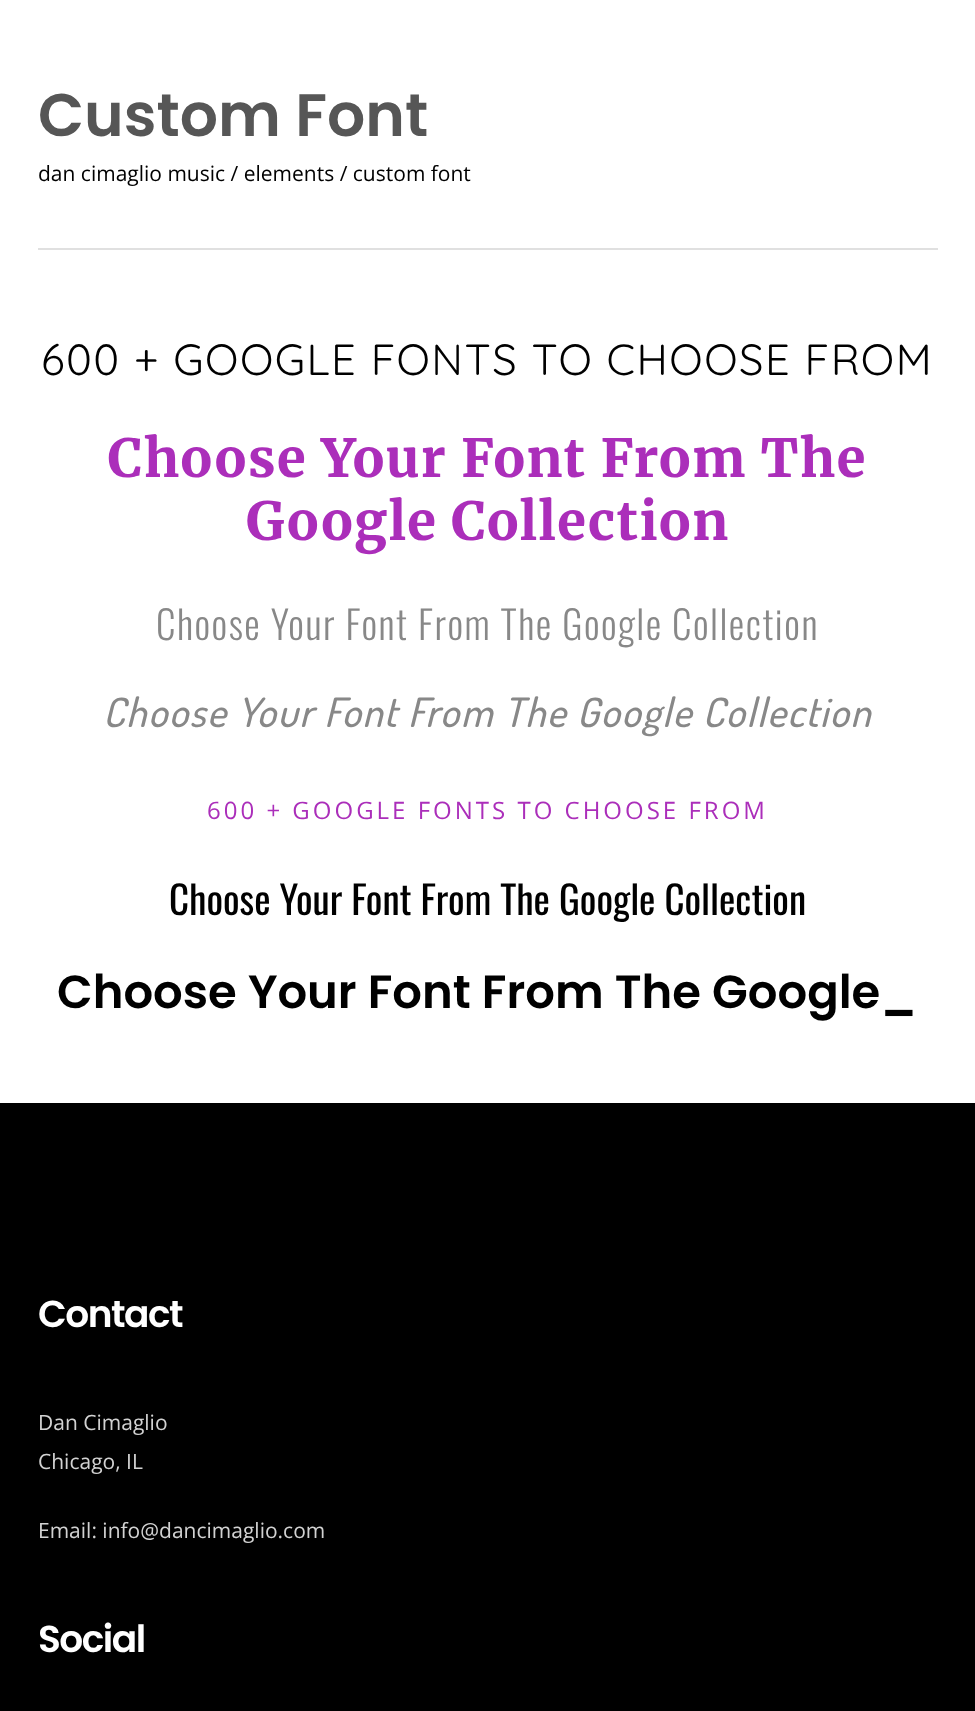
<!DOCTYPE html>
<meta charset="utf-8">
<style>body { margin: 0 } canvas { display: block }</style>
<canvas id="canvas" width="975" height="1711"></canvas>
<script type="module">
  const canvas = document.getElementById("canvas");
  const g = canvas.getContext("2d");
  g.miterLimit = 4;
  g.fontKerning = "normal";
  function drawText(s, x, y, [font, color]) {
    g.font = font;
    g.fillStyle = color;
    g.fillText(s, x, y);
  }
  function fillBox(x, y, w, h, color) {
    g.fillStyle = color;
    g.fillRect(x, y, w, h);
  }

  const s1 = ["600 60px Poppins", "#565656"];
  const s2 = ["21px Open Sans", "#000000"];
  const s3 = ["43.5px Quicksand", "#000000"];
  const s4 = ["800 52.5px Merriweather", "#AB2EBA"];
  const s5 = ["300 39px Oswald", "#888888"];
  const s6 = ["italic 500 40.5px Dosis", "#888888"];
  const s7 = ["24px Open Sans", "#AB2EBA"];
  const s8 = ["39px Oswald", "#000000"];
  const s9 = ["600 46.5px Poppins", "#000000"];
  const s10 = ["600 37.5px Poppins", "#FFFFFF"];
  const s11 = ["21px Open Sans", "#D2D2D2"];

  fillBox(0, 0, 975, 1711, "#FFFFFF");
  fillBox(38, 248, 900, 2, "#E0E0E0");
  drawText("Custom Font", 38, 136, s1);
  drawText("dan cimaglio music / elements / custom font", 38, 181, s2);
  g.letterSpacing = "1.5px";
  drawText("600 + GOOGLE FONTS TO CHOOSE FROM", 41, 375, s3);
  drawText("Choose Your Font From The", 108, 477, s4);
  drawText("Google Collection", 246, 540, s4);
  drawText("Choose Your Font From The Google Collection", 156, 640, s5);
  drawText("Choose Your Font From The Google Collection", 103, 727, s6);
  g.letterSpacing = "3px";
  drawText("600 + GOOGLE FONTS TO CHOOSE FROM", 207, 819, s7);
  g.letterSpacing = "0px";
  drawText("Choose Your Font From The Google Collection", 169, 915, s8);
  drawText("Choose Your Font From The Google_", 57, 1008, s9);
  fillBox(0, 1103, 975, 608, "#000000");
  g.letterSpacing = "-1.5px";
  drawText("Contact", 38, 1327, s10);
  g.letterSpacing = "0px";
  drawText("Dan Cimaglio", 38, 1430, s11);
  drawText("Chicago, IL", 38, 1469, s11);
  drawText("Email: info@dancimaglio.com", 38, 1538, s11);
  g.letterSpacing = "-1.5px";
  drawText("Social", 38, 1652, s10);
</script>
